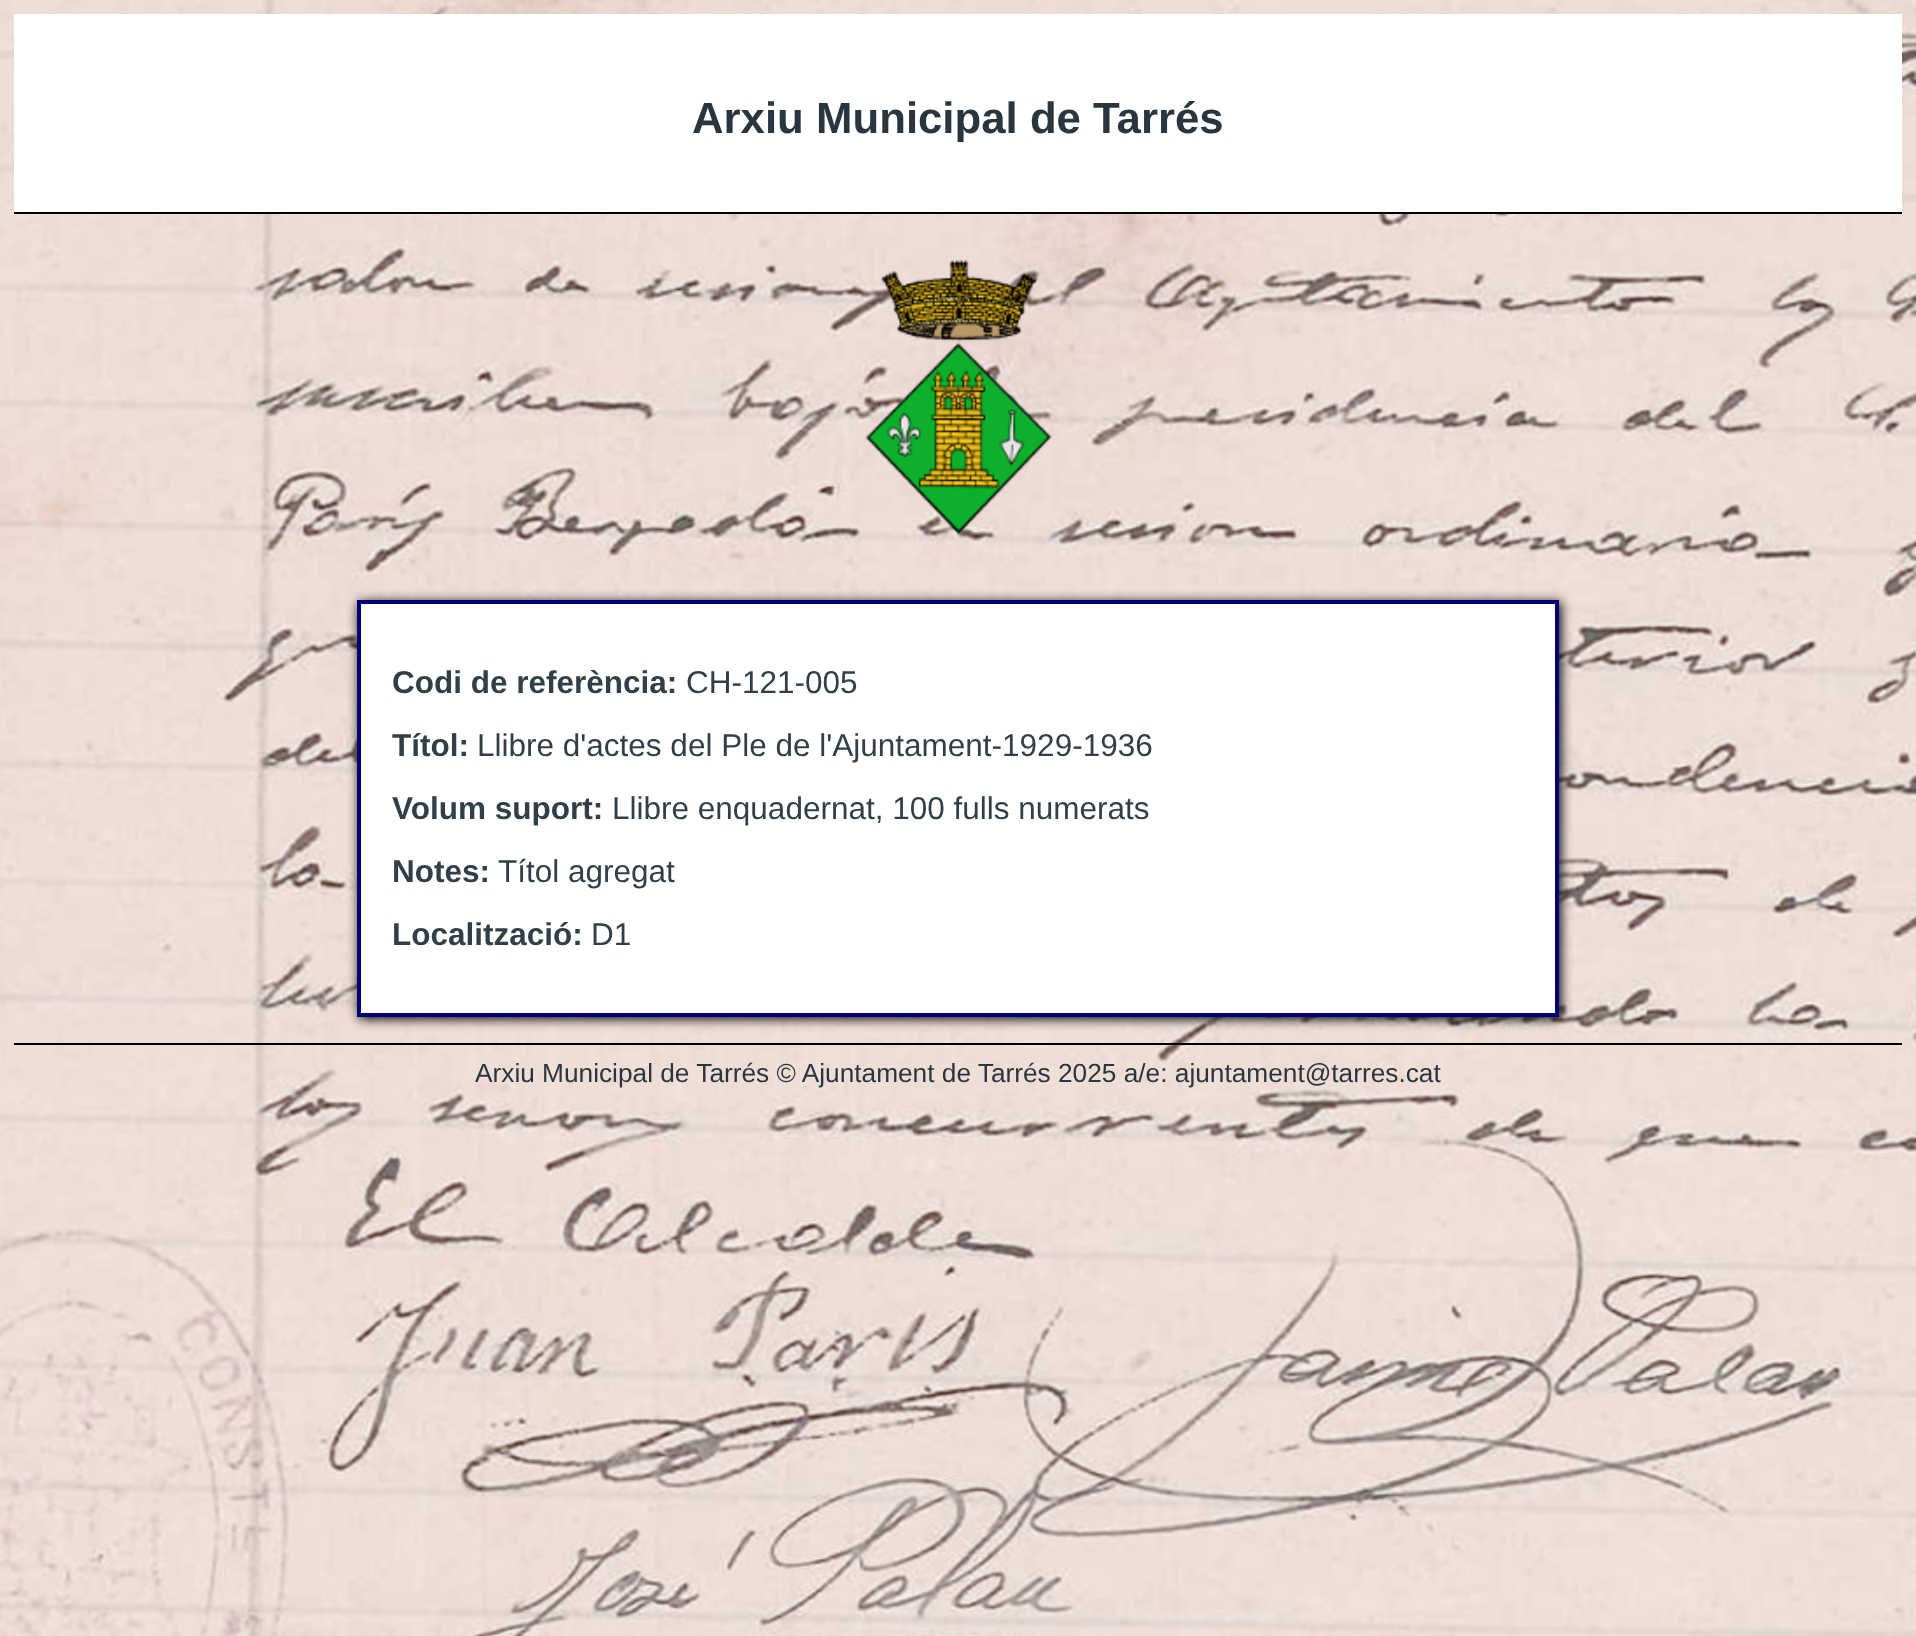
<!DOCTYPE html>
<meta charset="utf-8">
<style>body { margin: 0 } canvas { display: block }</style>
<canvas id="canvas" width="1916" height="1636"></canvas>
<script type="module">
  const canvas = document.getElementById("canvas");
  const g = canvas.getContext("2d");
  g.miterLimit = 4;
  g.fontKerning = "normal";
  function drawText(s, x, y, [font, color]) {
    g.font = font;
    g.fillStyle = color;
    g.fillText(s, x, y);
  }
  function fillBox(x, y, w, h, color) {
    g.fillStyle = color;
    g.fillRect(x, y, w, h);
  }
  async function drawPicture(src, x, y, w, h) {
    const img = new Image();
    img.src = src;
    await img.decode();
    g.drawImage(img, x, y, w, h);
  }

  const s1 = ["bold 43.75px Liberation Sans", "#29363F"];
  const s2 = ["bold 31.5px Liberation Sans", "#323F49"];
  const s3 = ["31.5px Liberation Sans", "#323F49"];
  const s4 = ["26.25px Liberation Sans", "#29363F"];

  fillBox(0, 0, 1916, 1636, "#FFFFFF");
  await drawPicture("pic1.png", 0, 0, 1916, 1636);
  fillBox(14, 14, 1888, 198, "#FFFFFF");
  fillBox(14, 212, 1888, 2, "#000000");
  drawText("Arxiu Municipal de Tarrés", 692, 133, s1);
  await drawPicture("pic2.png", 865, 259, 188, 276);
  g.fillStyle = "#000000";
  g.filter = "blur(6px)";
  g.beginPath();
  g.rect(359, 602, 1202, 417);
  g.fill();
  g.filter = "none";
  g.fillStyle = "#FFFFFF";
  g.beginPath();
  g.rect(359, 602, 1198, 413);
  g.fill();
  g.strokeStyle = "#000077";
  g.lineWidth = 4;
  g.stroke();
  drawText("Codi de referència:", 392, 693, s2);
  drawText("CH-121-005", 686, 693, s3);
  drawText("Títol:", 392, 756, s2);
  drawText("Llibre d'actes del Ple de l'Ajuntament-1929-1936", 477, 756, s3);
  drawText("Volum suport:", 392, 819, s2);
  drawText("Llibre enquadernat, 100 fulls numerats", 612, 819, s3);
  drawText("Notes:", 392, 882, s2);
  drawText("Títol agregat", 498, 882, s3);
  drawText("Localització:", 392, 945, s2);
  drawText("D1", 591, 945, s3);
  fillBox(14, 1043, 1888, 2, "#000000");
  drawText("Arxiu Municipal de Tarrés © Ajuntament de Tarrés 2025 a/e: ajuntament@tarres.cat", 475, 1082, s4);
</script>
